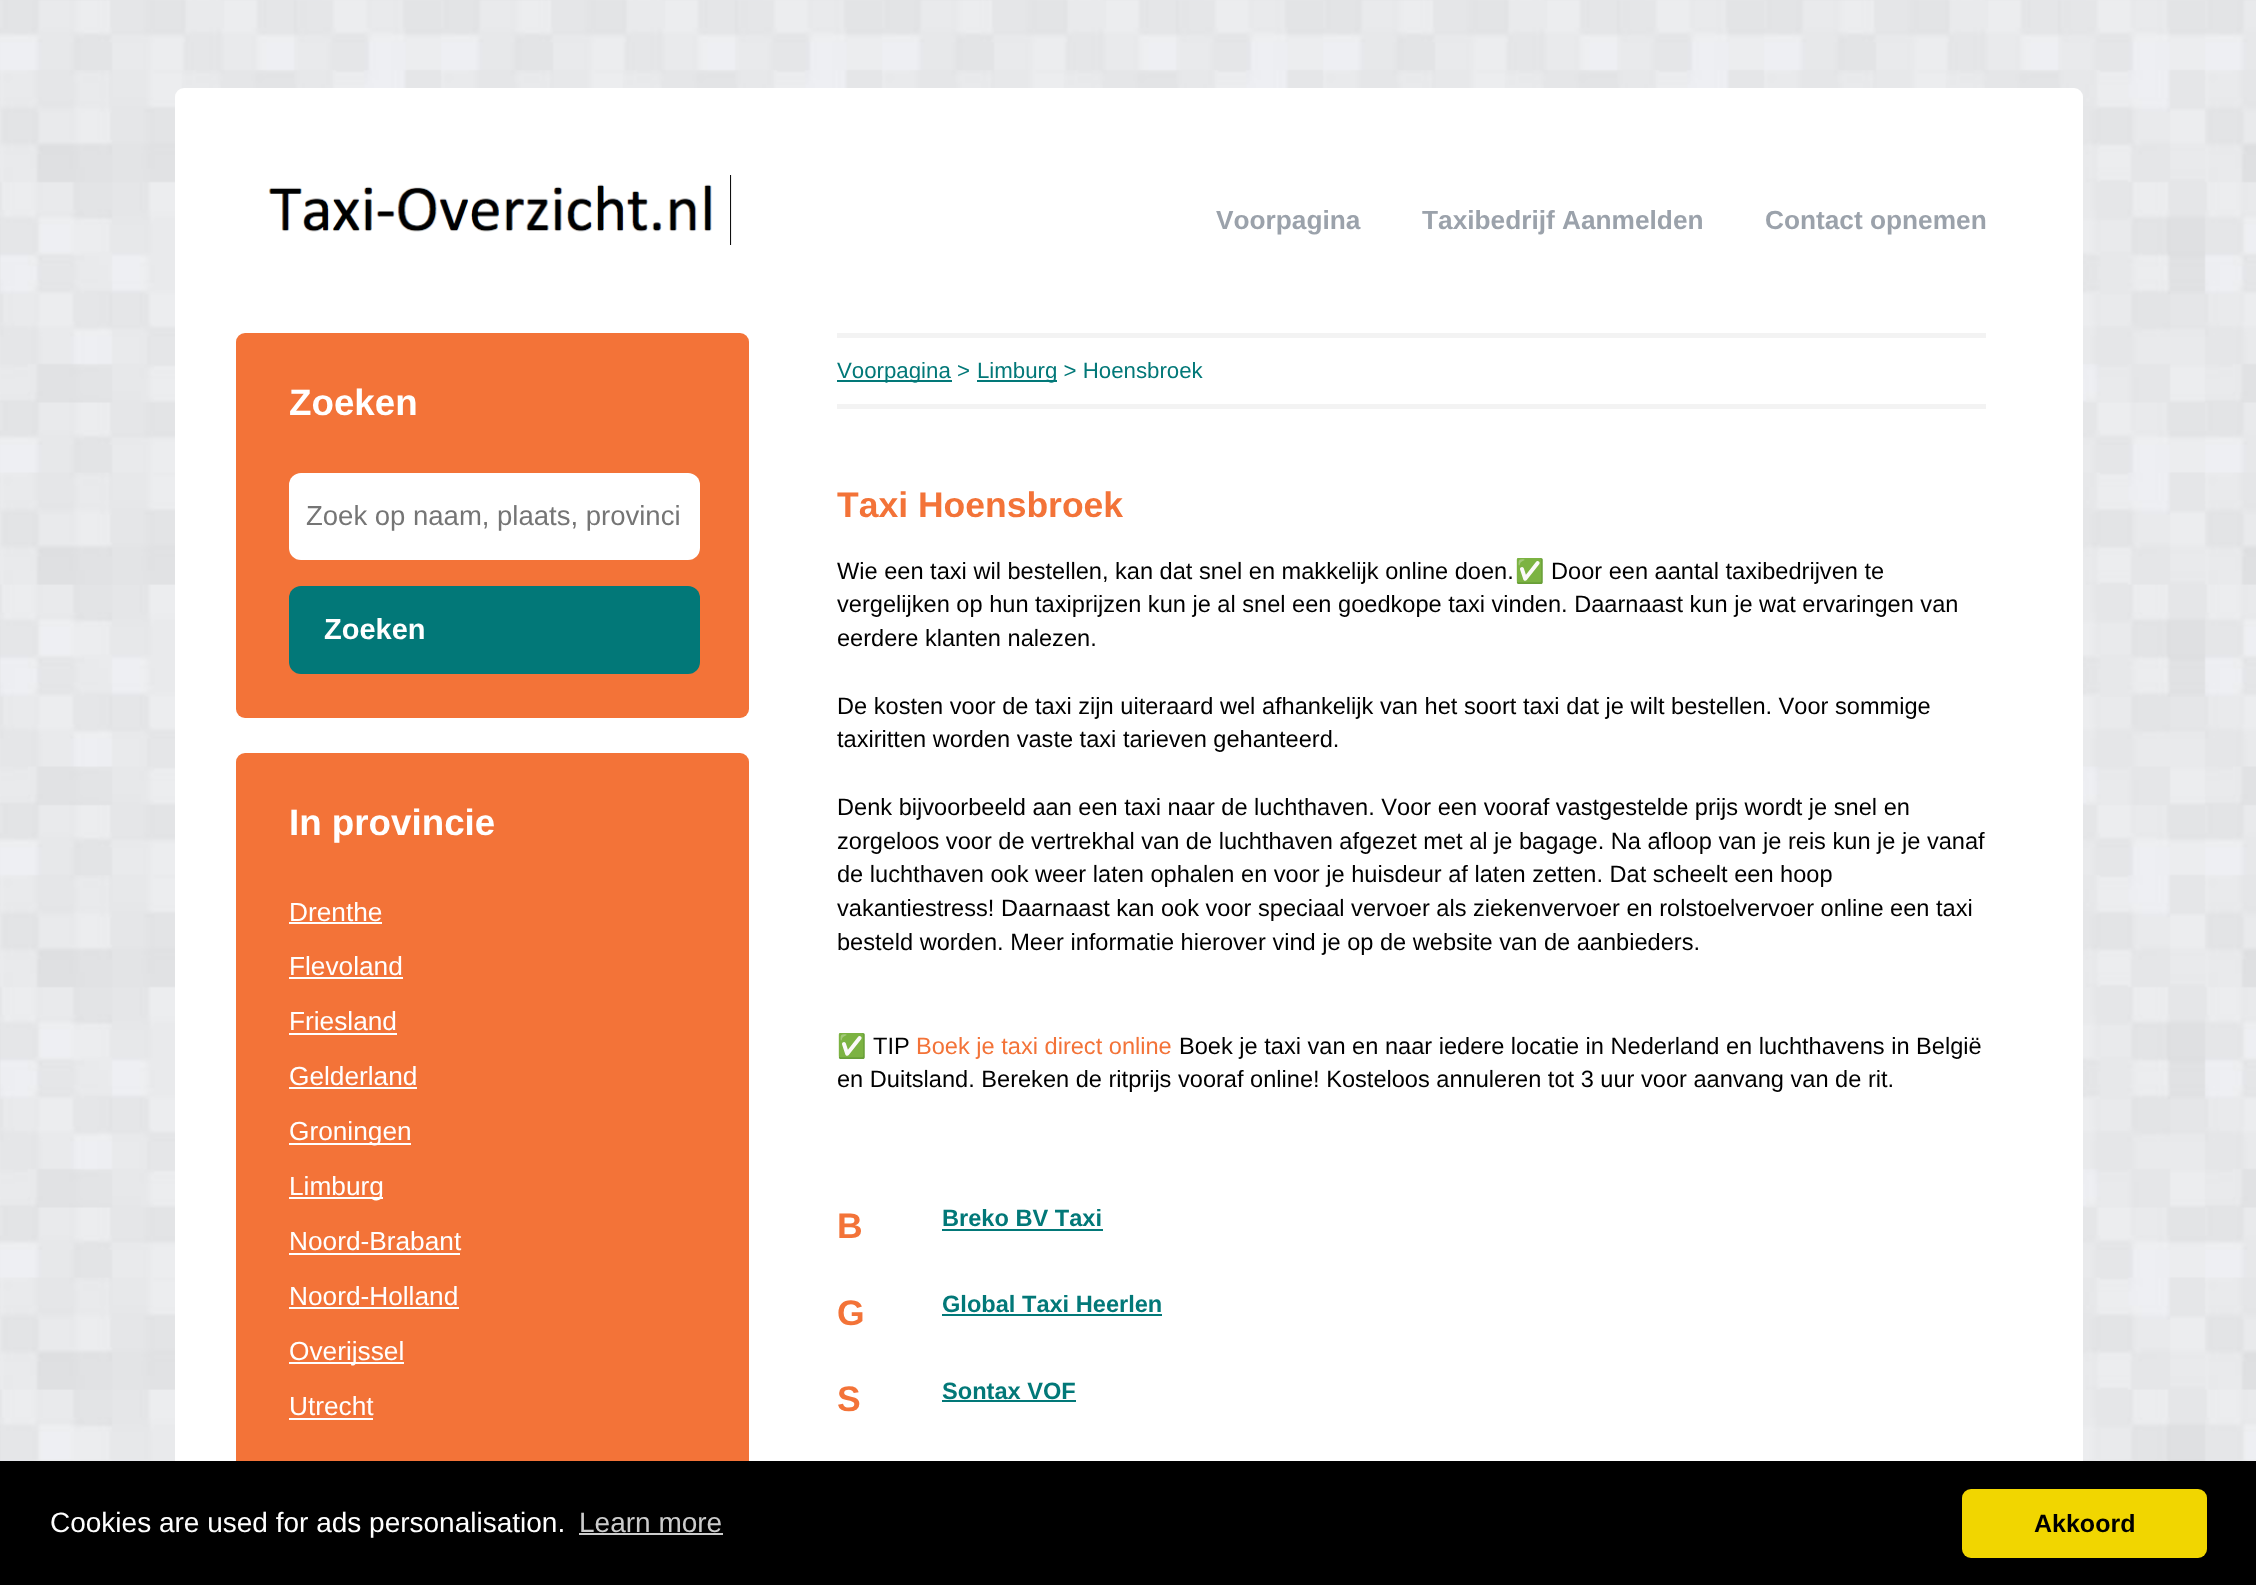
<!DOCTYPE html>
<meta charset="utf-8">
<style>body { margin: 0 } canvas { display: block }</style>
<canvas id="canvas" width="2256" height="1585"></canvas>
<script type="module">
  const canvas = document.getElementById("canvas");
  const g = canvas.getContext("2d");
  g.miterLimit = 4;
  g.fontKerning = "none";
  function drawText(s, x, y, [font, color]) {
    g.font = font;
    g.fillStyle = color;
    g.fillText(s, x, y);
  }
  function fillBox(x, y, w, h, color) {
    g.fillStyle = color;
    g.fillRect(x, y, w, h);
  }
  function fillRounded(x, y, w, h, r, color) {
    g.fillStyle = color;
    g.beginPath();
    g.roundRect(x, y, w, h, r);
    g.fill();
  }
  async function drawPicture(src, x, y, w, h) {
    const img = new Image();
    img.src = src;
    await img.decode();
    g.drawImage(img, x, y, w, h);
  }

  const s1 = ["bold 26.25px Liberation Sans", "#9BA2AB"];
  const s2 = ["bold 36.75px Liberation Sans", "#FFFFFF"];
  const s3 = ["27.5px Liberation Sans", "#757575"];
  const s4 = ["bold 29px Liberation Sans", "#FFFFFF"];
  const s5 = ["26.25px Liberation Sans", "#FFFFFF"];
  const s6 = ["22.25px Liberation Sans", "#027878"];
  const s7 = ["bold 35.5px Liberation Sans", "#F37338"];
  const s8 = ["23.6px Liberation Sans", "#000000"];
  const s9 = ["23.6px Noto Color Emoji", "#000000"];
  const s10 = ["23.6px Liberation Sans", "#F37338"];
  const s11 = ["bold 23.6px Liberation Sans", "#027878"];
  const s12 = ["28px Liberation Sans", "#FFFFFF"];
  const s13 = ["28px Liberation Sans", "#CCCCCC"];
  const s14 = ["bold 25px Liberation Sans", "#000000"];

  fillBox(0, 0, 2256, 1585, "#FFFFFF");
  await drawPicture("pic1.png", 0, 0, 2256, 1461);
  fillRounded(175, 88, 1908, 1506, 9, "#FFFFFF");
  await drawPicture("pic2.png", 268, 175, 464, 70);
  drawText("Voorpagina", 1216, 229, s1);
  drawText("Taxibedrijf Aanmelden", 1422, 229, s1);
  drawText("Contact opnemen", 1765, 229, s1);
  fillRounded(236, 333, 513, 385, 9, "#F37338");
  drawText("Zoeken", 289, 415, s2);
  fillRounded(289, 473, 411, 87, 12, "#FFFFFF");
  drawText("Zoek op naam, plaats, provinci", 306, 525, s3);
  fillRounded(289, 586, 411, 88, 12, "#027878");
  drawText("Zoeken", 324, 639, s4);
  fillRounded(236, 753, 513, 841, 9, "#F37338");
  drawText("In provincie", 289, 835, s2);
  drawText("Drenthe", 289, 921, s5);
  fillBox(289, 922, 93, 2, "#FFFFFF");
  drawText("Flevoland", 289, 975, s5);
  fillBox(289, 977, 114, 2, "#FFFFFF");
  drawText("Friesland", 289, 1030, s5);
  fillBox(289, 1033, 108, 2, "#FFFFFF");
  drawText("Gelderland", 289, 1085, s5);
  fillBox(289, 1087, 128, 2, "#FFFFFF");
  fillBox(289, 1143, 122, 2, "#FFFFFF");
  drawText("Groningen", 289, 1140, s5);
  fillBox(289, 1197, 94, 2, "#FFFFFF");
  drawText("Limburg", 289, 1195, s5);
  drawText("Noord-Brabant", 289, 1250, s5);
  fillBox(289, 1253, 171, 2, "#FFFFFF");
  drawText("Noord-Holland", 289, 1305, s5);
  fillBox(289, 1307, 170, 2, "#FFFFFF");
  fillBox(289, 1362, 115, 2, "#FFFFFF");
  drawText("Overijssel", 289, 1360, s5);
  drawText("Utrecht", 289, 1415, s5);
  fillBox(289, 1418, 84, 2, "#FFFFFF");
  fillBox(837, 333, 1149, 5, "#F3F3F3");
  fillBox(837, 404, 1149, 5, "#F3F3F3");
  fillBox(837, 380, 115, 2, "#027878");
  drawText("Voorpagina >", 837, 378, s6);
  fillBox(977, 380, 80, 2, "#027878");
  drawText("Limburg > Hoensbroek", 977, 378, s6);
  drawText("Taxi Hoensbroek", 837, 517, s7);
  drawText("Wie een taxi wil bestellen, kan dat snel en makkelijk online doen.", 837, 579, s8);
  drawText("✅", 1515, 579, s9);
  drawText("Door een aantal taxibedrijven te", 1551, 579, s8);
  drawText("vergelijken op hun taxiprijzen kun je al snel een goedkope taxi vinden. Daarnaast kun je wat ervaringen van", 837, 612, s8);
  drawText("eerdere klanten nalezen.", 837, 646, s8);
  drawText("De kosten voor de taxi zijn uiteraard wel afhankelijk van het soort taxi dat je wilt bestellen. Voor sommige", 837, 714, s8);
  drawText("taxiritten worden vaste taxi tarieven gehanteerd.", 837, 747, s8);
  drawText("Denk bijvoorbeeld aan een taxi naar de luchthaven. Voor een vooraf vastgestelde prijs wordt je snel en", 837, 815, s8);
  drawText("zorgeloos voor de vertrekhal van de luchthaven afgezet met al je bagage. Na afloop van je reis kun je je vanaf", 837, 849, s8);
  drawText("de luchthaven ook weer laten ophalen en voor je huisdeur af laten zetten. Dat scheelt een hoop", 837, 882, s8);
  drawText("vakantiestress! Daarnaast kan ook voor speciaal vervoer als ziekenvervoer en rolstoelvervoer online een taxi", 837, 916, s8);
  drawText("besteld worden. Meer informatie hierover vind je op de website van de aanbieders.", 837, 950, s8);
  drawText("✅", 837, 1054, s9);
  drawText("TIP", 873, 1054, s8);
  drawText("Boek je taxi direct online", 916, 1054, s10);
  drawText("Boek je taxi van en naar iedere locatie in Nederland en luchthavens in België", 1179, 1054, s8);
  drawText("en Duitsland. Bereken de ritprijs vooraf online! Kosteloos annuleren tot 3 uur voor aanvang van de rit.", 837, 1087, s8);
  drawText("B", 837, 1238, s7);
  drawText("Breko BV Taxi", 942, 1226, s11);
  fillBox(942, 1229, 161, 2, "#027878");
  drawText("G", 837, 1325, s7);
  drawText("Global Taxi Heerlen", 942, 1312, s11);
  fillBox(942, 1314, 220, 2, "#027878");
  drawText("S", 837, 1411, s7);
  drawText("Sontax VOF", 942, 1399, s11);
  fillBox(942, 1400, 134, 2, "#027878");
  fillBox(0, 1461, 2256, 124, "#000000");
  drawText("Cookies are used for ads personalisation.", 50, 1532, s12);
  drawText("Learn more", 579, 1532, s13);
  fillBox(579, 1533, 144, 2, "#CCCCCC");
  fillRounded(1962, 1489, 245, 69, 9, "#F1D600");
  drawText("Akkoord", 2034, 1532, s14);
</script>
